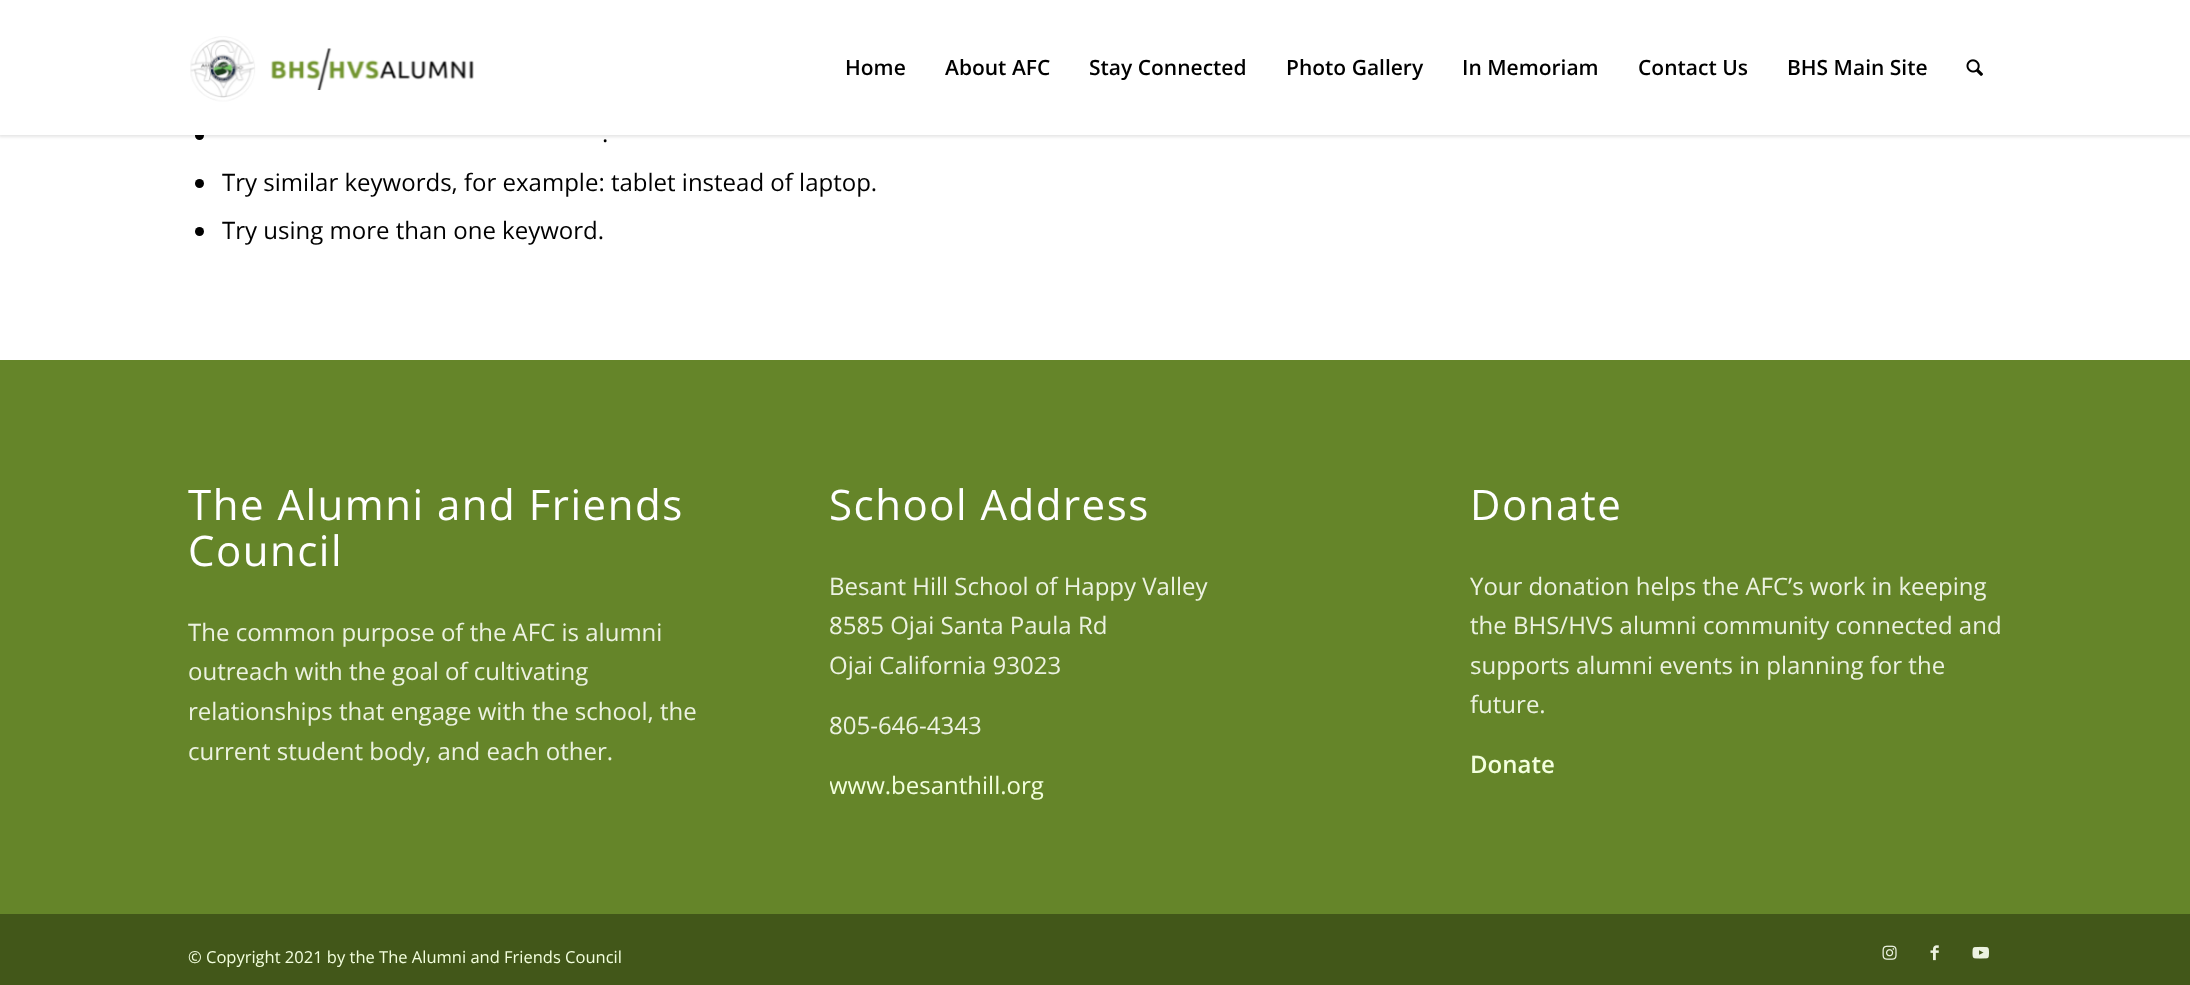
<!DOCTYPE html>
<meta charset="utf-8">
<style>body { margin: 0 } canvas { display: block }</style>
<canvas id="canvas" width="2190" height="985"></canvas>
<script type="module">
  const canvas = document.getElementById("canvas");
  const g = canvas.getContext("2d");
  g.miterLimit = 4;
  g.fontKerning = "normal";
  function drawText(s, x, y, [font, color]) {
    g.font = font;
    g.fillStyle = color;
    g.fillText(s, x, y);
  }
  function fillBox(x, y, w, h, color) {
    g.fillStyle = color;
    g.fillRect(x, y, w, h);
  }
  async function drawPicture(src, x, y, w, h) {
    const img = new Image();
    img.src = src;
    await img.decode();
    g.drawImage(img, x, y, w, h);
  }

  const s1 = ["600 21px Open Sans", "#000000"];
  const s2 = ["24px Open Sans", "#000000"];
  const s3 = ["42px Open Sans", "#FFFFFF"];
  const s4 = ["24px Open Sans", "#ECF2E1"];
  const s5 = ["24px Open Sans", "#F3FFDE"];
  const s6 = ["600 24px Open Sans", "#F3FFDE"];
  const s7 = ["16.5px Open Sans", "#F3FFDE"];

  fillBox(0, 0, 2190, 985, "#FFFFFF");
  g.fillStyle = "#000000";
  g.beginPath();
  g.arc(199.5, 135.5, 4.5, 0, Math.PI * 2);
  g.fill();
  g.fillStyle = "rgba(0, 0, 0, 0.1)";
  g.filter = "blur(1.5px)";
  g.beginPath();
  g.rect(-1, -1, 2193, 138);
  g.fill();
  g.filter = "none";
  fillBox(0, 0, 2190, 135, "#FFFFFF");
  await drawPicture("pic1.png", 190, 36, 284, 66);
  drawText("Home", 845, 75, s1);
  drawText("About AFC", 945, 75, s1);
  drawText("Stay Connected", 1089, 75, s1);
  drawText("Photo Gallery", 1286, 75, s1);
  drawText("In Memoriam", 1462, 75, s1);
  drawText("Contact Us", 1638, 75, s1);
  drawText("BHS Main Site", 1787, 75, s1);
  await drawPicture("pic2.png", 1966, 59, 17, 17);
  drawText(".", 602, 142, s2);
  g.beginPath();
  g.arc(199.5, 183.5, 4.5, 0, Math.PI * 2);
  g.fill();
  drawText("Try similar keywords, for example: tablet instead of laptop.", 222, 191, s2);
  g.beginPath();
  g.arc(199.5, 231.5, 4.5, 0, Math.PI * 2);
  g.fill();
  drawText("Try using more than one keyword.", 222, 239, s2);
  fillBox(0, 360, 2190, 554, "#658529");
  g.save();
  g.beginPath();
  g.rect(188, 429, 532, 362);
  g.clip();
  g.letterSpacing = "1.5px";
  drawText("The Alumni and Friends", 188, 520, s3);
  g.restore();
  g.letterSpacing = "1.5px";
  drawText("Council", 188, 566, s3);
  g.letterSpacing = "0px";
  drawText("The common purpose of the AFC is alumni", 188, 641, s4);
  drawText("outreach with the goal of cultivating", 188, 680, s4);
  drawText("relationships that engage with the school, the", 188, 720, s4);
  drawText("current student body, and each other.", 188, 760, s4);
  g.letterSpacing = "1.5px";
  drawText("School Address", 829, 520, s3);
  g.letterSpacing = "0px";
  drawText("Besant Hill School of Happy Valley", 829, 595, s4);
  drawText("8585 Ojai Santa Paula Rd", 829, 634, s4);
  drawText("Ojai California 93023", 829, 674, s4);
  drawText("805-646-4343", 829, 734, s4);
  g.save();
  g.beginPath();
  g.rect(830, 429, 531, 396);
  g.clip();
  drawText("www.besanthill.org", 829, 794, s5);
  g.restore();
  g.letterSpacing = "1.5px";
  drawText("Donate", 1470, 520, s3);
  g.letterSpacing = "0px";
  drawText("Your donation helps the AFC’s work in keeping", 1470, 595, s4);
  drawText("the BHS/HVS alumni community connected and", 1470, 634, s4);
  drawText("supports alumni events in planning for the", 1470, 674, s4);
  drawText("future.", 1470, 713, s4);
  drawText("Donate", 1470, 773, s6);
  fillBox(0, 914, 2190, 71, "#425719");
  drawText("© Copyright 2021 by the The Alumni and Friends Council", 188, 963, s7);
  await drawPicture("pic3.png", 1882, 945, 15, 15);
  await drawPicture("pic4.png", 1930, 945, 9, 16);
  await drawPicture("pic5.png", 1972, 946, 17, 13);
</script>
